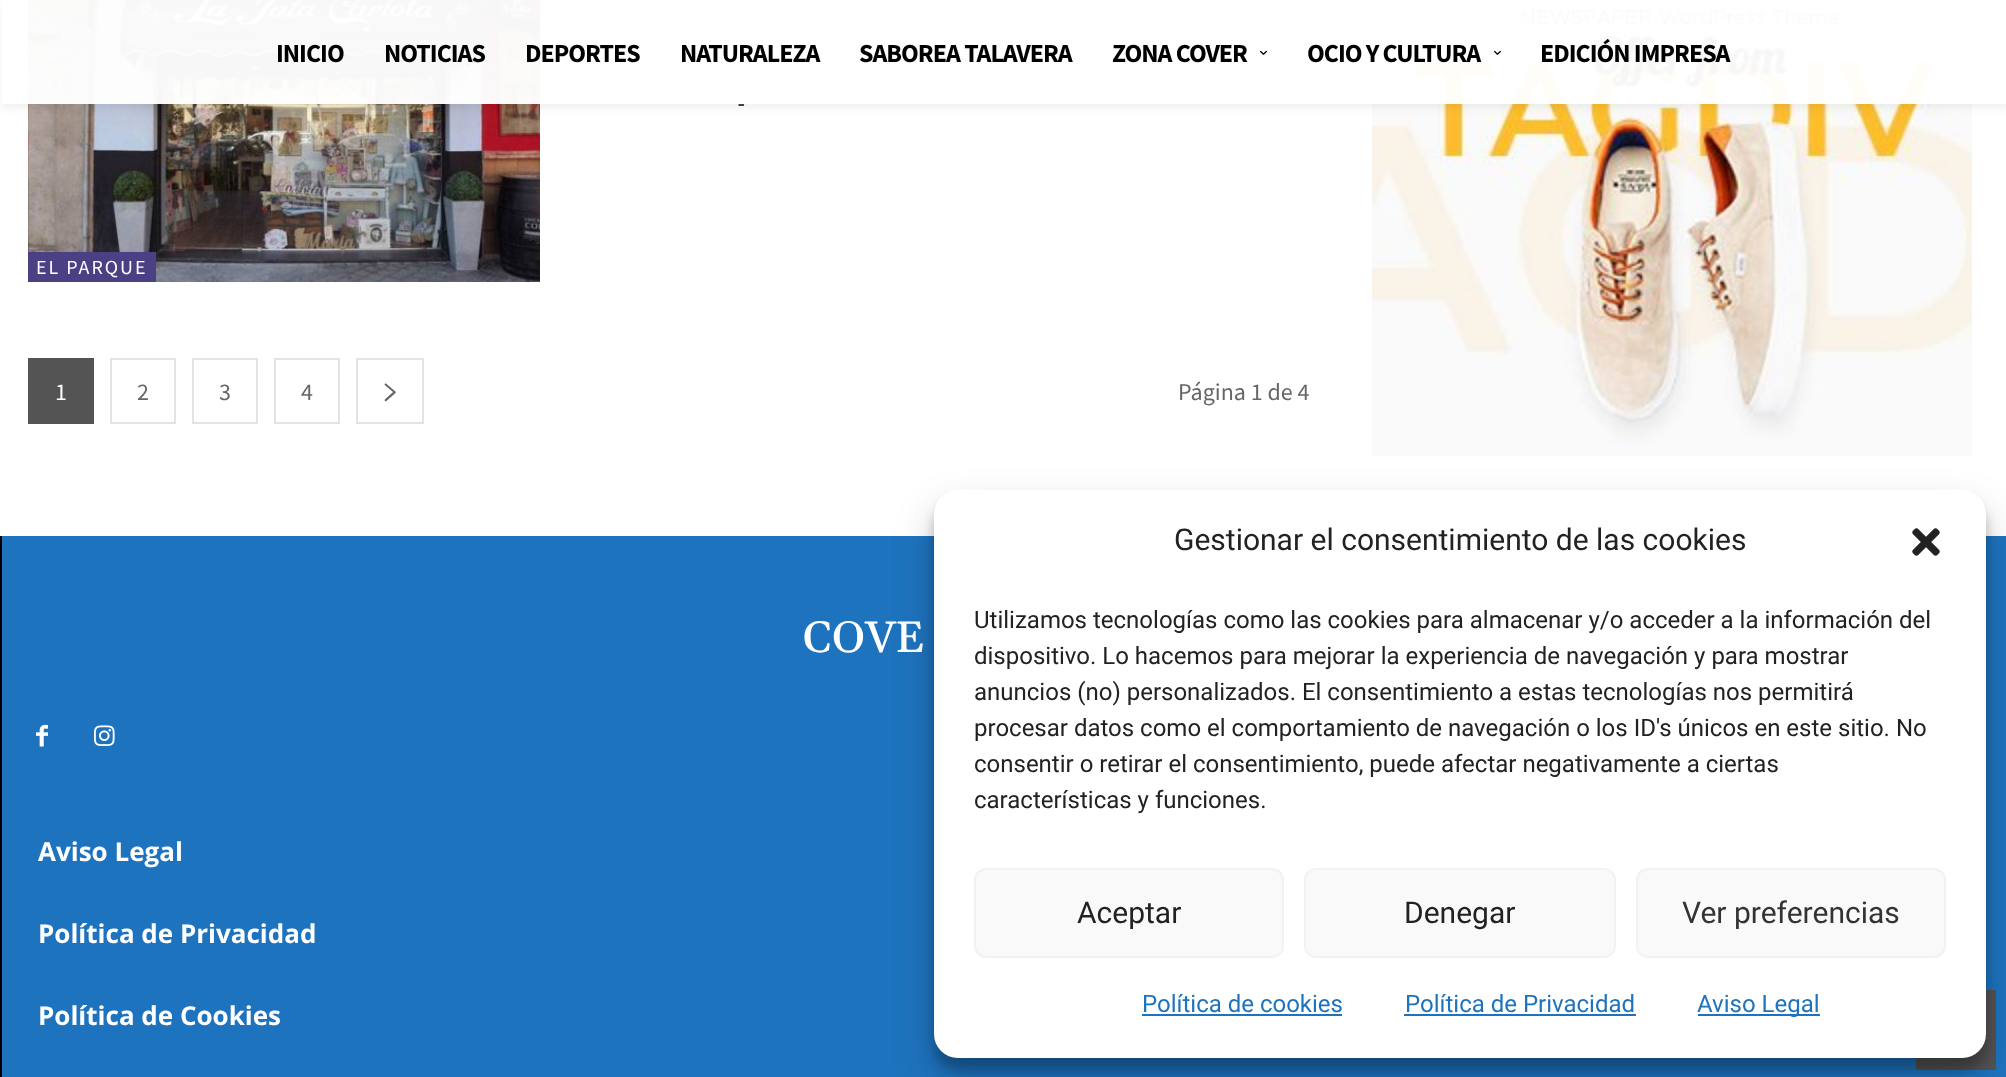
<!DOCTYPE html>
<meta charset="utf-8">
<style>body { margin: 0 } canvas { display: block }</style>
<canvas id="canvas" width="2006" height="1077"></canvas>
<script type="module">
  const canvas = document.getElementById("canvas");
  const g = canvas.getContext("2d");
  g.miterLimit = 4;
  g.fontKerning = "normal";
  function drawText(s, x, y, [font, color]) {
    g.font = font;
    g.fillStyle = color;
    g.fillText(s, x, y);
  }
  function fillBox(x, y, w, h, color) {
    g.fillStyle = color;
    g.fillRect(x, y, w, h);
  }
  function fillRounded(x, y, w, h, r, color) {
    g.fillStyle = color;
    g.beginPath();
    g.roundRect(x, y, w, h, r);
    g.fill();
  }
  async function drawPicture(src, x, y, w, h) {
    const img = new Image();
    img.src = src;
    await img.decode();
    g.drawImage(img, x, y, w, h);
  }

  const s1 = ["bold 26px Source Sans Pro", "#000000"];
  const s2 = ["italic 24px Source Sans Pro", "#000000"];
  const s3 = ["20px Source Sans Pro", "#FFFFFF"];
  const s4 = ["24px Source Sans Pro", "#FFFFFF"];
  const s5 = ["24px Source Sans Pro", "#666666"];
  const s6 = ["500 44px Gelasio", "#FFFFFF"];
  const s7 = ["bold 26px Open Sans", "#FFFFFF"];
  const s8 = ["30px Roboto", "#222222"];
  const s9 = ["24px Roboto", "#222222"];
  const s10 = ["30px Roboto", "#333333"];
  const s11 = ["24px Roboto", "#1E73BE"];

  fillBox(0, 0, 2006, 1077, "#FFFFFF");
  await drawPicture("pic3.png", 28, 0, 512, 282);
  await drawPicture("pic5.png", 1372, 0, 600, 456);
  fillBox(28, 0, 1944, 104, "rgba(255, 255, 255, 0.97)");
  g.save();
  g.beginPath();
  g.moveTo(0, 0);
  g.lineTo(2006, 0);
  g.lineTo(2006, 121);
  g.lineTo(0, 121);
  g.closePath();
  g.moveTo(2, 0);
  g.lineTo(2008, 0);
  g.lineTo(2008, 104);
  g.lineTo(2, 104);
  g.closePath();
  g.clip("evenodd");
  g.fillStyle = "rgba(0, 0, 0, 0.06)";
  g.filter = "blur(4px)";
  g.beginPath();
  g.rect(2, 4, 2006, 104);
  g.fill();
  g.filter = "none";
  g.restore();
  g.letterSpacing = "-1px";
  drawText("INICIO", 276, 62, s1);
  drawText("NOTICIAS", 384, 62, s1);
  drawText("DEPORTES", 525, 62, s1);
  drawText("NATURALEZA", 680, 62, s1);
  drawText("SABOREA TALAVERA", 859, 62, s1);
  drawText("ZONA COVER", 1112, 62, s1);
  await drawPicture("pic1.png", 1260, 50, 7, 5);
  drawText("OCIO Y CULTURA", 1307, 62, s1);
  await drawPicture("pic2.png", 1494, 50, 7, 5);
  drawText("EDICIÓN IMPRESA", 1540, 62, s1);
  g.letterSpacing = "0px";
  drawText("-", 736, 111, s2);
  fillBox(28, 252, 128, 30, "#4C4084");
  g.letterSpacing = "2px";
  drawText("EL PARQUE", 36, 274, s3);
  fillBox(28, 358, 66, 66, "#545454");
  g.letterSpacing = "0px";
  drawText("1", 55, 400, s4);
  g.strokeStyle = "#E3E3E3";
  g.lineWidth = 2;
  g.strokeRect(111, 359, 64, 64);
  drawText("2", 137, 400, s5);
  g.strokeRect(193, 359, 64, 64);
  drawText("3", 219, 400, s5);
  g.strokeRect(275, 359, 64, 64);
  drawText("4", 301, 400, s5);
  g.strokeRect(357, 359, 66, 64);
  await drawPicture("pic4.png", 384, 383, 12, 19);
  drawText("Página 1 de 4", 1178, 400, s5);
  fillBox(0, 536, 2, 541, "#000000");
  fillBox(2, 536, 2004, 541, "#1E73BE");
  drawText("COVE", 803, 652, s6);
  await drawPicture("pic6.png", 36, 724, 12, 23);
  await drawPicture("pic7.png", 94, 725, 21, 21);
  drawText("Aviso Legal", 38, 861, s7);
  drawText("Política de Privacidad", 38, 943, s7);
  drawText("Política de Cookies", 38, 1025, s7);
  fillBox(1916, 990, 80, 80, "#545454");
  g.fillStyle = "rgba(0, 0, 0, 0.23)";
  g.filter = "blur(6px)";
  g.beginPath();
  g.roundRect(934, 502, 1052, 568, 24);
  g.fill();
  g.filter = "none";
  g.fillStyle = "rgba(0, 0, 0, 0.19)";
  g.filter = "blur(20px)";
  g.beginPath();
  g.roundRect(934, 510, 1052, 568, 24);
  g.fill();
  g.filter = "none";
  fillRounded(934, 490, 1052, 568, 24, "#FFFFFF");
  drawText("Gestionar el consentimiento de las cookies", 1174, 550, s8);
  await drawPicture("pic8.png", 1912, 528, 28, 28);
  drawText("Utilizamos tecnologías como las cookies para almacenar y/o acceder a la información del", 974, 628, s9);
  drawText("dispositivo. Lo hacemos para mejorar la experiencia de navegación y para mostrar", 974, 664, s9);
  drawText("anuncios (no) personalizados. El consentimiento a estas tecnologías nos permitirá", 974, 700, s9);
  drawText("procesar datos como el comportamiento de navegación o los ID's únicos en este sitio. No", 974, 736, s9);
  drawText("consentir o retirar el consentimiento, puede afectar negativamente a ciertas", 974, 772, s9);
  drawText("características y funciones.", 974, 808, s9);
  g.fillStyle = "#F9F9F9";
  g.beginPath();
  g.roundRect(975, 869, 308, 88, 11);
  g.fill();
  g.strokeStyle = "#F2F2F2";
  g.stroke();
  drawText("Aceptar", 1077, 923, s8);
  g.fillStyle = "#F9F9F9";
  g.beginPath();
  g.roundRect(1305, 869, 310, 88, 11);
  g.fill();
  g.stroke();
  drawText("Denegar", 1404, 923, s8);
  g.fillStyle = "#F9F9F9";
  g.beginPath();
  g.roundRect(1637, 869, 308, 88, 11);
  g.fill();
  g.stroke();
  drawText("Ver preferencias", 1682, 923, s10);
  drawText("Política de cookies", 1142, 1012, s11);
  fillBox(1142, 1014, 200, 2, "#1E73BE");
  drawText("Política de Privacidad", 1405, 1012, s11);
  fillBox(1404, 1014, 232, 2, "#1E73BE");
  fillBox(1698, 1014, 122, 2, "#1E73BE");
  drawText("Aviso Legal", 1697, 1012, s11);
</script>
